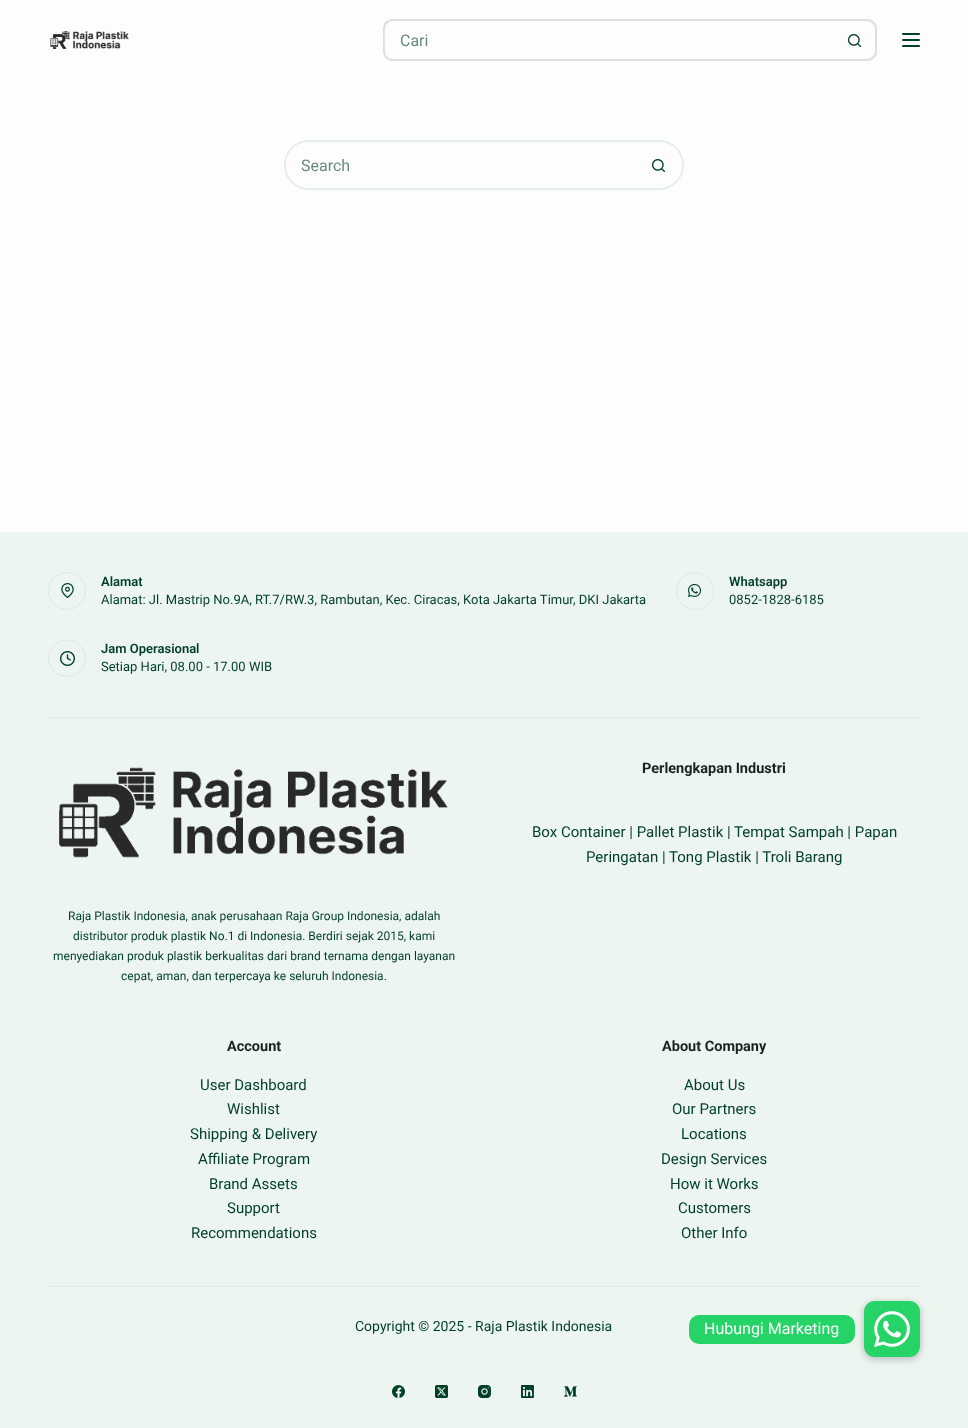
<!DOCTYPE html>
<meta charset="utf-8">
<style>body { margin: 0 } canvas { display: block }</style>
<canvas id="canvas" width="968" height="1428"></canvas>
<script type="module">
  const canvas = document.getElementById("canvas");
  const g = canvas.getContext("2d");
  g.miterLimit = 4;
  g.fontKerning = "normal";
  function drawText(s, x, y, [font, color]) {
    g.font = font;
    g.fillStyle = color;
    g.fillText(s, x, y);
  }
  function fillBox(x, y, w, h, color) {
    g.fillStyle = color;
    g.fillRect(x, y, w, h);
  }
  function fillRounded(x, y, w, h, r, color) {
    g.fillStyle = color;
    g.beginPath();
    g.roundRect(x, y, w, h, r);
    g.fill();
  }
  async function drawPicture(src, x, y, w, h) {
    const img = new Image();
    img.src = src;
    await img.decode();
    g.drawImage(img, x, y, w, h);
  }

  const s1 = ["16px Roboto", "#658A7E"];
  const s2 = ["600 13px Roboto", "#003E29"];
  const s3 = ["13px Roboto", "#003E29"];
  const s4 = ["bold 14.5px Roboto", "#152420"];
  const s5 = ["15px Roboto", "#003E29"];
  const s6 = ["12px Roboto", "#003E29"];
  const s7 = ["14px Roboto", "#003E29"];
  const s8 = ["16px Roboto", "#FFFFFF"];

  fillBox(0, 0, 968, 1428, "#FDFDFD");
  await drawPicture("pic1.png", 50, 31, 79, 18);
  g.fillStyle = "#DAE1E1";
  g.beginPath();
  g.moveTo(393, 19);
  g.lineTo(835, 19);
  g.lineTo(835, 61);
  g.lineTo(393, 61);
  g.bezierCurveTo(387, 61, 383, 57, 383, 51);
  g.lineTo(383, 29);
  g.bezierCurveTo(383, 23, 387, 19, 393, 19);
  g.closePath();
  g.moveTo(393, 21);
  g.lineTo(835, 21);
  g.lineTo(835, 59);
  g.lineTo(393, 59);
  g.bezierCurveTo(383, 59, 385, 46, 385, 40);
  g.bezierCurveTo(385, 34, 383, 21, 393, 21);
  g.closePath();
  g.fill("evenodd");
  drawText("Cari", 400, 46, s1);
  g.fillStyle = "#DAE1E1";
  g.beginPath();
  g.moveTo(835, 19);
  g.lineTo(867, 19);
  g.bezierCurveTo(873, 19, 877, 23, 877, 29);
  g.lineTo(877, 51);
  g.bezierCurveTo(877, 57, 873, 61, 867, 61);
  g.lineTo(835, 61);
  g.closePath();
  g.moveTo(835, 21);
  g.lineTo(867, 21);
  g.bezierCurveTo(871, 21, 875, 25, 875, 29);
  g.lineTo(875, 51);
  g.bezierCurveTo(875, 55, 871, 59, 867, 59);
  g.lineTo(835, 59);
  g.closePath();
  g.fill("evenodd");
  await drawPicture("pic2.png", 848, 34, 13, 13);
  fillRounded(902, 33, 18, 2, 1, "#003E29");
  fillRounded(902, 39, 18, 2, 1, "#003E29");
  fillRounded(902, 45, 18, 2, 1, "#003E29");
  g.fillStyle = "#E4F0E7";
  g.beginPath();
  g.moveTo(309, 140);
  g.lineTo(634, 140);
  g.lineTo(634, 190);
  g.lineTo(309, 190);
  g.bezierCurveTo(295, 190, 284, 179, 284, 165);
  g.bezierCurveTo(284, 151, 295, 140, 309, 140);
  g.closePath();
  g.moveTo(309, 142);
  g.lineTo(634, 142);
  g.lineTo(634, 188);
  g.lineTo(309, 188);
  g.bezierCurveTo(296, 188, 286, 178, 286, 165);
  g.bezierCurveTo(286, 152, 296, 142, 309, 142);
  g.closePath();
  g.fill("evenodd");
  drawText("Search", 301, 171, s1);
  g.fillStyle = "#E4F0E7";
  g.beginPath();
  g.moveTo(634, 140);
  g.lineTo(659, 140);
  g.bezierCurveTo(673, 140, 684, 151, 684, 165);
  g.bezierCurveTo(684, 179, 673, 190, 659, 190);
  g.lineTo(634, 190);
  g.closePath();
  g.moveTo(634, 142);
  g.lineTo(659, 142);
  g.bezierCurveTo(672, 142, 682, 152, 682, 165);
  g.bezierCurveTo(682, 178, 672, 188, 659, 188);
  g.lineTo(634, 188);
  g.closePath();
  g.fill("evenodd");
  await drawPicture("pic3.png", 652, 159, 13, 13);
  fillBox(0, 532, 968, 896, "#EDF5F1");
  fillBox(48, 717, 872, 1, "#DFE7E9");
  g.beginPath();
  g.arc(67, 591, 18.5, 0, Math.PI * 2);
  g.strokeStyle = "#DFE7E9";
  g.stroke();
  await drawPicture("pic4.png", 61, 583, 13, 15);
  drawText("Alamat", 101, 586, s2);
  drawText("Alamat: Jl. Mastrip No.9A, RT.7/RW.3, Rambutan, Kec. Ciracas, Kota Jakarta Timur, DKI Jakarta", 101, 604, s3);
  g.beginPath();
  g.arc(695, 591, 18.5, 0, Math.PI * 2);
  g.stroke();
  await drawPicture("pic5.png", 688, 583, 14, 14);
  drawText("Whatsapp", 729, 586, s2);
  drawText("0852-1828-6185", 729, 604, s3);
  g.beginPath();
  g.roundRect(48.5, 640.5, 37, 36, 18);
  g.stroke();
  await drawPicture("pic6.png", 60, 651, 15, 15);
  drawText("Jam Operasional", 101, 653, s2);
  drawText("Setiap Hari, 08.00 - 17.00 WIB", 101, 671, s3);
  fillBox(48, 1286, 872, 1, "#DFE7E9");
  drawText("Perlengkapan Industri", 642, 773, s4);
  drawText("Box Container | Pallet Plastik | Tempat Sampah | Papan", 532, 837, s5);
  drawText("Peringatan | Tong Plastik | Troli Barang", 586, 862, s5);
  await drawPicture("pic7.png", 59, 767, 389, 91);
  drawText("Raja Plastik Indonesia, anak perusahaan Raja Group Indonesia, adalah", 68, 920, s6);
  drawText("distributor produk plastik No.1 di Indonesia. Berdiri sejak 2015, kami", 73, 940, s6);
  drawText("menyediakan produk plastik berkualitas dari brand ternama dengan layanan", 53, 960, s6);
  drawText("cepat, aman, dan terpercaya ke seluruh Indonesia.", 121, 980, s6);
  drawText("Account", 227, 1051, s4);
  drawText("User Dashboard", 200, 1090, s5);
  drawText("Wishlist", 227, 1114, s5);
  drawText("Shipping & Delivery", 190, 1139, s5);
  drawText("Affiliate Program", 198, 1164, s5);
  drawText("Brand Assets", 209, 1189, s5);
  drawText("Support", 227, 1213, s5);
  drawText("Recommendations", 191, 1238, s5);
  drawText("About Company", 662, 1051, s4);
  drawText("About Us", 684, 1090, s5);
  drawText("Our Partners", 672, 1114, s5);
  drawText("Locations", 681, 1139, s5);
  drawText("Design Services", 661, 1164, s5);
  drawText("How it Works", 670, 1189, s5);
  drawText("Customers", 678, 1213, s5);
  drawText("Other Info", 681, 1238, s5);
  drawText("Copyright © 2025 - Raja Plastik Indonesia", 355, 1331, s7);
  await drawPicture("pic8.png", 392, 1385, 13, 13);
  await drawPicture("pic9.png", 435, 1385, 13, 13);
  await drawPicture("pic10.png", 478, 1385, 13, 13);
  await drawPicture("pic11.png", 521, 1385, 13, 13);
  await drawPicture("pic12.png", 564, 1386, 13, 11);
  g.fillStyle = "rgba(0, 0, 0, 0.2)";
  g.filter = "blur(3px)";
  g.beginPath();
  g.roundRect(863, 1302, 58, 58, 12);
  g.fill();
  g.filter = "none";
  fillRounded(864, 1301, 56, 56, 11, "#25D366");
  fillRounded(689, 1315, 166, 29, 10, "#25D366");
  drawText("Hubungi Marketing", 704, 1334, s8);
  await drawPicture("pic13.png", 874, 1311, 36, 36);
</script>
